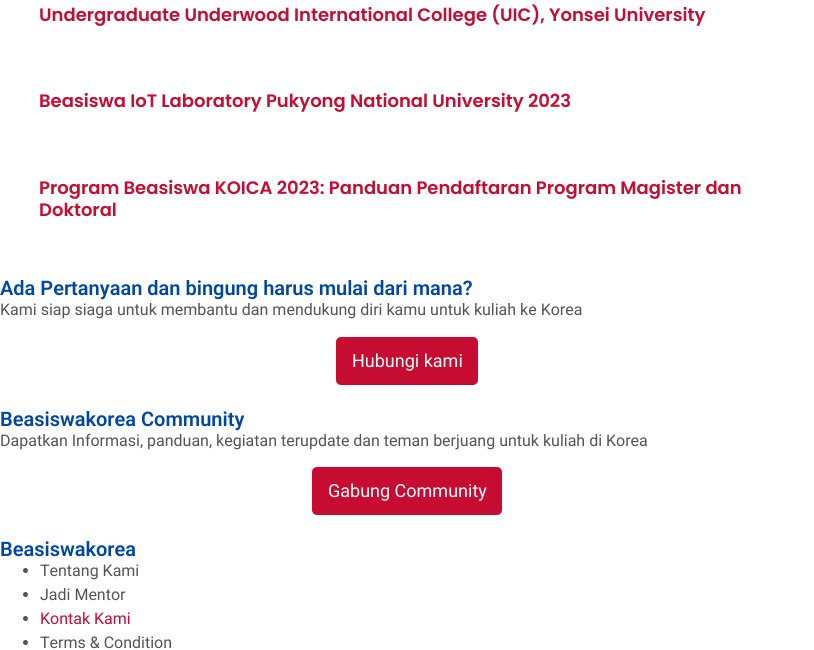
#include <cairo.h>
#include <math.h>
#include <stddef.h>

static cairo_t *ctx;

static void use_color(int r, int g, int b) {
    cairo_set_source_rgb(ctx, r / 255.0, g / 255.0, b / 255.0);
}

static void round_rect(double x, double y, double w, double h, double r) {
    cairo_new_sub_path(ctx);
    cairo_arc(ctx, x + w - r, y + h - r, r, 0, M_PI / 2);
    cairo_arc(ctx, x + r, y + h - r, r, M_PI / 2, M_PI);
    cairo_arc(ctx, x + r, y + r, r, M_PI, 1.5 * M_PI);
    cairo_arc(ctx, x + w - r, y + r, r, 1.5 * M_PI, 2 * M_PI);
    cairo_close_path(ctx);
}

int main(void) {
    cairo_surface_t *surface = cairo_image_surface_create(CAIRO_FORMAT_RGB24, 814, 650);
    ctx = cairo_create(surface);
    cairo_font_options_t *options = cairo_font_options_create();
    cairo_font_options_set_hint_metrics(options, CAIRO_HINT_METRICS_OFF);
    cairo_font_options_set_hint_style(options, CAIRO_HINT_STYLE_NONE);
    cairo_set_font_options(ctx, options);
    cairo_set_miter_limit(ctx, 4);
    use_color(255, 255, 255);
    cairo_paint(ctx);
    cairo_select_font_face(ctx, "Poppins SemiBold", CAIRO_FONT_SLANT_NORMAL, CAIRO_FONT_WEIGHT_NORMAL);
    cairo_set_font_size(ctx, 18);
    use_color(198, 12, 48);
    cairo_move_to(ctx, 39, 21);
    cairo_show_text(ctx, "Undergraduate Underwood International College (UIC), Yonsei University");
    cairo_move_to(ctx, 39, 107);
    cairo_show_text(ctx, "Beasiswa IoT Laboratory Pukyong National University 2023");
    cairo_move_to(ctx, 39, 194);
    cairo_show_text(ctx, "Program Beasiswa KOICA 2023: Panduan Pendaftaran Program Magister dan");
    cairo_move_to(ctx, 39, 216);
    cairo_show_text(ctx, "Doktoral");
    cairo_select_font_face(ctx, "Roboto SemiBold", CAIRO_FONT_SLANT_NORMAL, CAIRO_FONT_WEIGHT_NORMAL);
    cairo_set_font_size(ctx, 20);
    use_color(0, 71, 164);
    cairo_move_to(ctx, 0, 295);
    cairo_show_text(ctx, "Ada Pertanyaan dan bingung harus mulai dari mana?");
    cairo_select_font_face(ctx, "Roboto", CAIRO_FONT_SLANT_NORMAL, CAIRO_FONT_WEIGHT_NORMAL);
    cairo_set_font_size(ctx, 16);
    use_color(84, 84, 84);
    cairo_move_to(ctx, 0, 315);
    cairo_show_text(ctx, "Kami siap siaga untuk membantu dan mendukung diri kamu untuk kuliah ke Korea");
    use_color(198, 12, 48);
    round_rect(336, 337, 142, 48, 5);
    cairo_fill(ctx);
    cairo_set_font_size(ctx, 18);
    use_color(255, 255, 255);
    cairo_move_to(ctx, 352, 367);
    cairo_show_text(ctx, "Hubungi kami");
    cairo_select_font_face(ctx, "Roboto SemiBold", CAIRO_FONT_SLANT_NORMAL, CAIRO_FONT_WEIGHT_NORMAL);
    cairo_set_font_size(ctx, 20);
    use_color(0, 71, 164);
    cairo_move_to(ctx, 0, 426);
    cairo_show_text(ctx, "Beasiswakorea Community");
    cairo_select_font_face(ctx, "Roboto", CAIRO_FONT_SLANT_NORMAL, CAIRO_FONT_WEIGHT_NORMAL);
    cairo_set_font_size(ctx, 16);
    use_color(84, 84, 84);
    cairo_move_to(ctx, 0, 446);
    cairo_show_text(ctx, "Dapatkan Informasi, panduan, kegiatan terupdate dan teman berjuang untuk kuliah di Korea");
    use_color(198, 12, 48);
    round_rect(312, 467, 190, 48, 5);
    cairo_fill(ctx);
    cairo_set_font_size(ctx, 18);
    use_color(255, 255, 255);
    cairo_move_to(ctx, 328, 497);
    cairo_show_text(ctx, "Gabung Community");
    cairo_select_font_face(ctx, "Roboto SemiBold", CAIRO_FONT_SLANT_NORMAL, CAIRO_FONT_WEIGHT_NORMAL);
    cairo_set_font_size(ctx, 20);
    use_color(0, 71, 164);
    cairo_move_to(ctx, 0, 556);
    cairo_show_text(ctx, "Beasiswakorea");
    use_color(84, 84, 84);
    cairo_new_path(ctx);
    cairo_arc(ctx, 25.5, 570.5, 2.5, 0, 2 * M_PI);
    cairo_fill(ctx);
    cairo_select_font_face(ctx, "Roboto", CAIRO_FONT_SLANT_NORMAL, CAIRO_FONT_WEIGHT_NORMAL);
    cairo_set_font_size(ctx, 16);
    cairo_move_to(ctx, 40, 576);
    cairo_show_text(ctx, "Tentang Kami");
    cairo_new_path(ctx);
    cairo_arc(ctx, 25.5, 594.5, 2.5, 0, 2 * M_PI);
    cairo_fill(ctx);
    cairo_move_to(ctx, 40, 600);
    cairo_show_text(ctx, "Jadi Mentor");
    cairo_new_path(ctx);
    cairo_arc(ctx, 25.5, 618.5, 2.5, 0, 2 * M_PI);
    cairo_fill(ctx);
    use_color(198, 12, 48);
    cairo_move_to(ctx, 40, 624);
    cairo_show_text(ctx, "Kontak Kami");
    use_color(84, 84, 84);
    cairo_new_path(ctx);
    cairo_arc(ctx, 25.5, 642.5, 2.5, 0, 2 * M_PI);
    cairo_fill(ctx);
    cairo_move_to(ctx, 40, 648);
    cairo_show_text(ctx, "Terms & Condition");
    cairo_surface_write_to_png(surface, "result.png");
    cairo_font_options_destroy(options);
    cairo_destroy(ctx);
    cairo_surface_destroy(surface);
    return 0;
}
